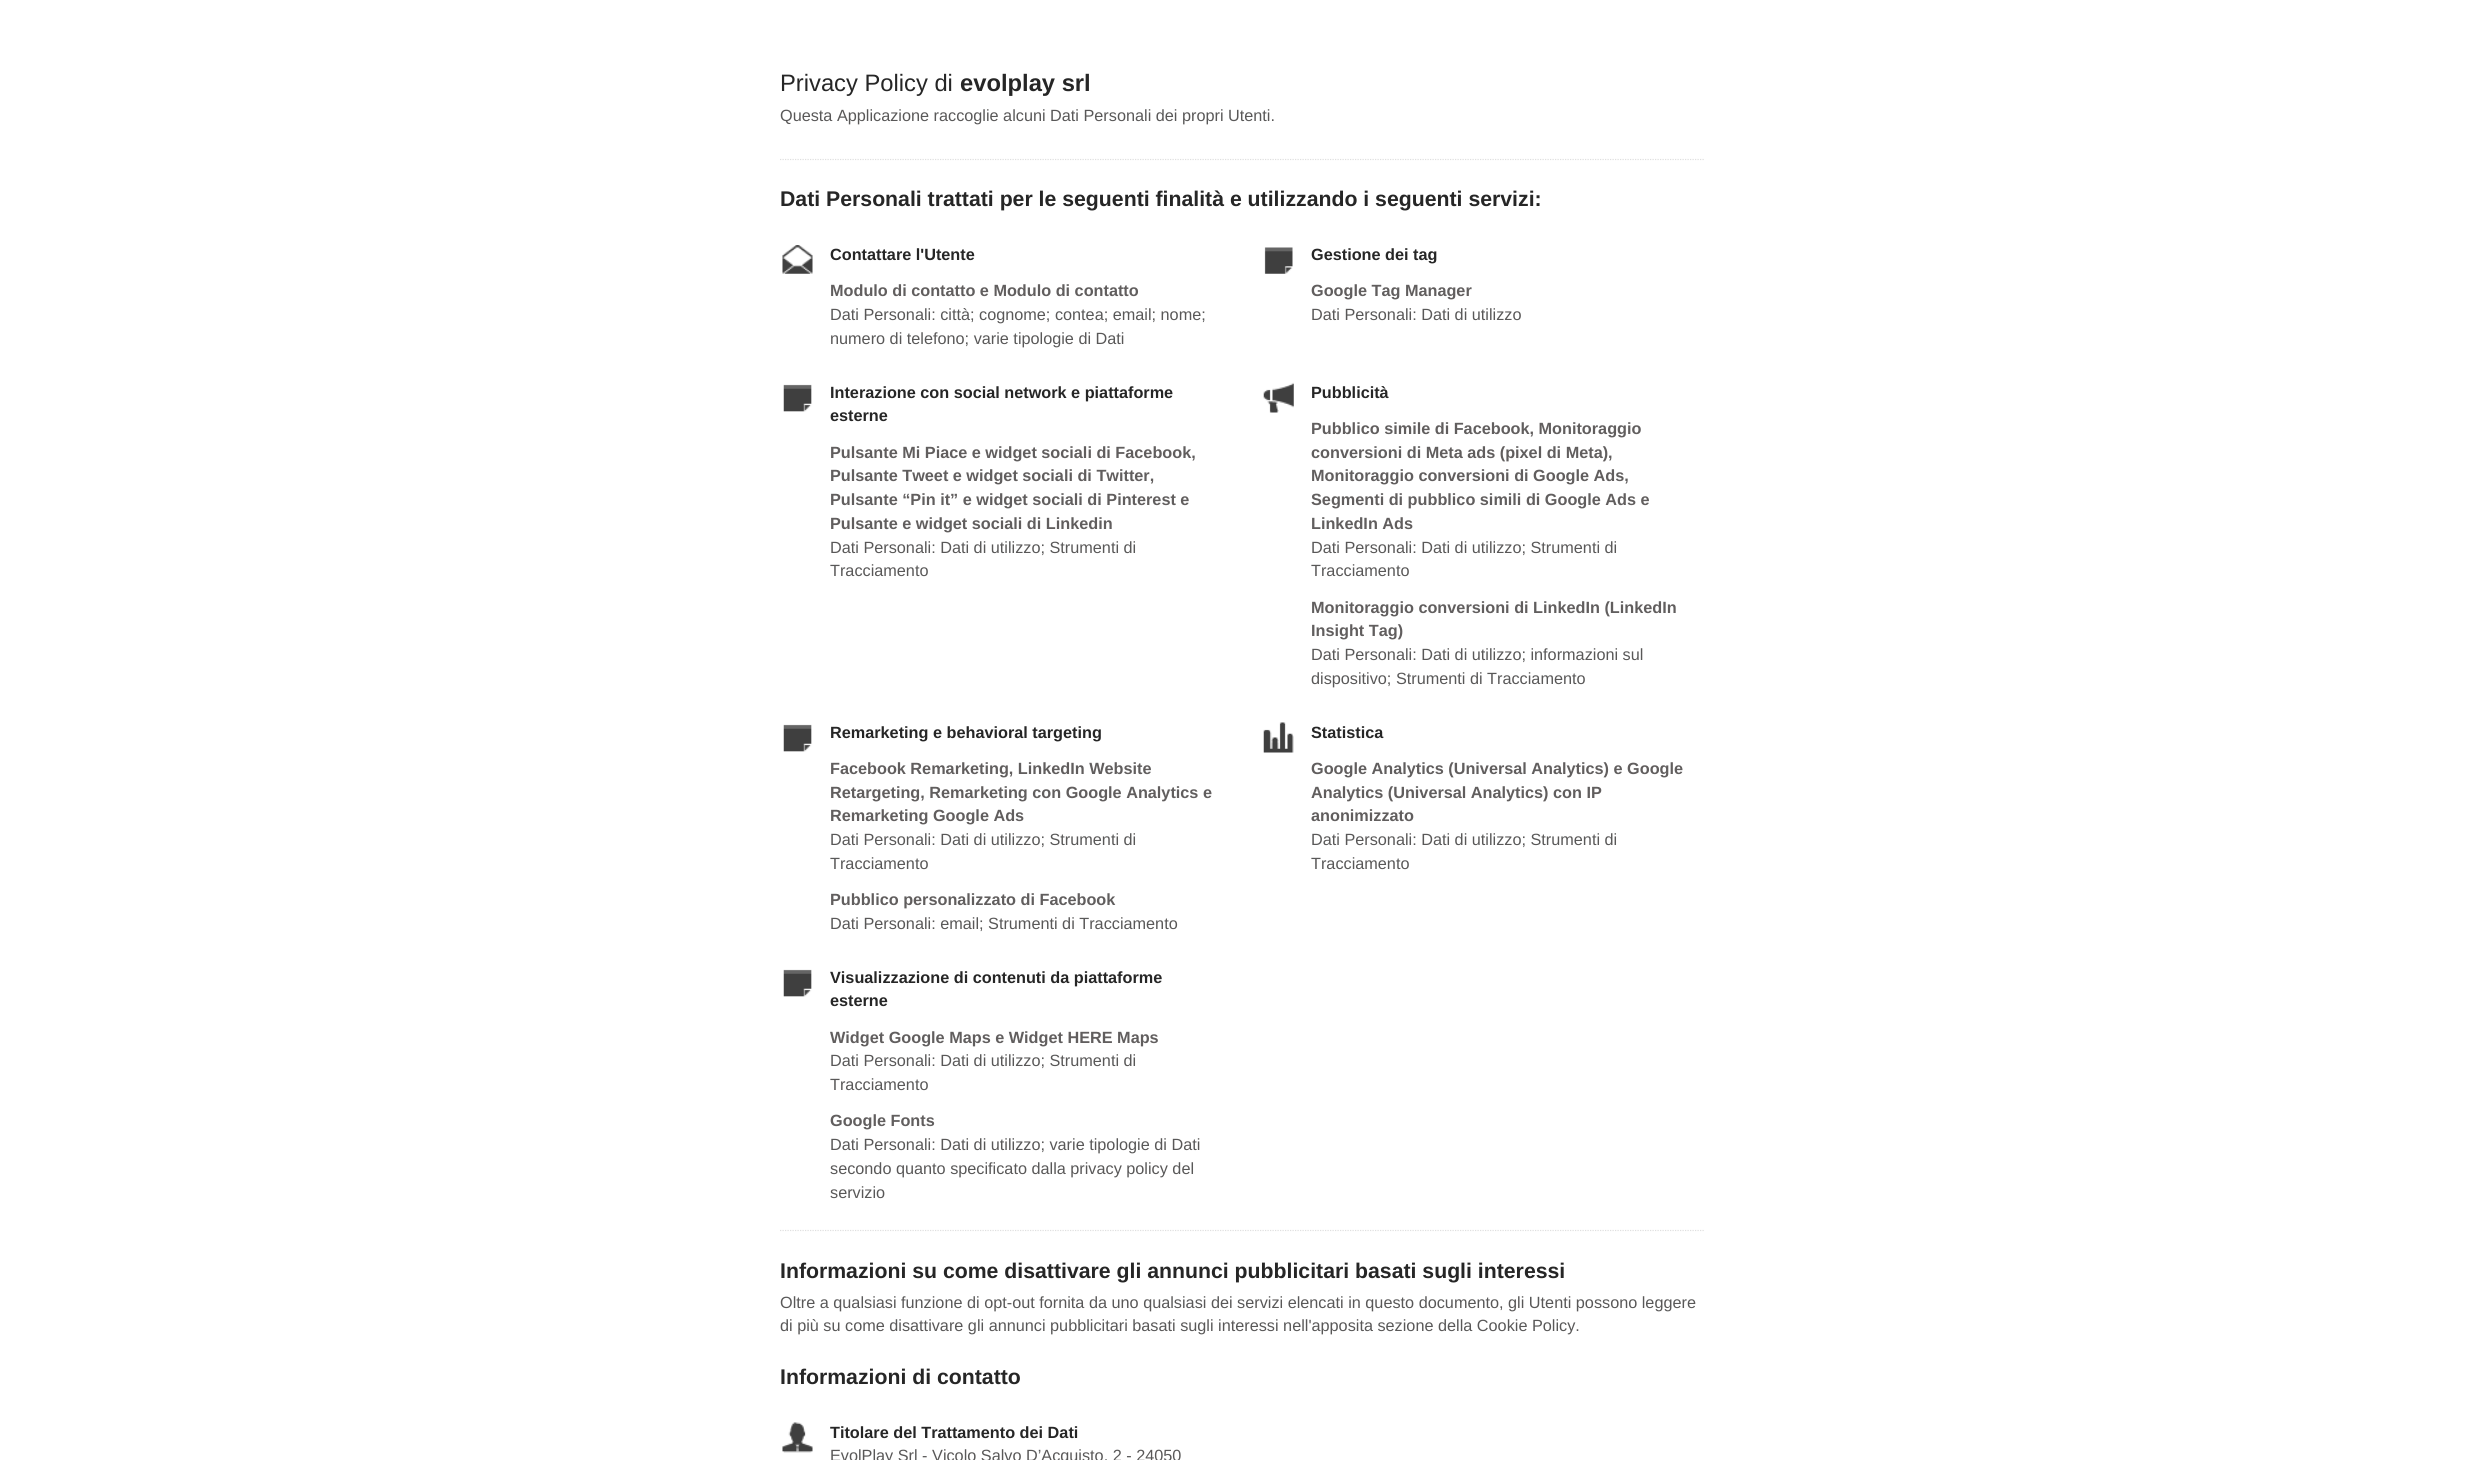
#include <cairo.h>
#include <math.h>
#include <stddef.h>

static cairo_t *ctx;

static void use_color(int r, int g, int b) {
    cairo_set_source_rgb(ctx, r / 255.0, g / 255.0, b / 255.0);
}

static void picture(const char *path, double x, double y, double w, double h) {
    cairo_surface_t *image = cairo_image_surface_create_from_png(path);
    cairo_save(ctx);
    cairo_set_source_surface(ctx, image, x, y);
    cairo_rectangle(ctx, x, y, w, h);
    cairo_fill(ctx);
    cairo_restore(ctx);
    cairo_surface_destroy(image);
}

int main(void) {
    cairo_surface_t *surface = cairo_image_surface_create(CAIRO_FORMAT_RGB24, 2484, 1460);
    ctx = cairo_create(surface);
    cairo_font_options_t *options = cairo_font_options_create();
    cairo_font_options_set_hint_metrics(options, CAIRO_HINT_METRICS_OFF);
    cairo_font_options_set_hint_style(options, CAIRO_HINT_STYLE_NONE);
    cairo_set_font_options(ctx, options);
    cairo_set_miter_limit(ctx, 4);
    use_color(255, 255, 255);
    cairo_paint(ctx);
    cairo_new_path(ctx);
    cairo_move_to(ctx, 780, 159.5);
    cairo_line_to(ctx, 1705, 159.5);
    use_color(223, 223, 223);
    cairo_set_line_width(ctx, 1.2);
    cairo_set_dash(ctx, (double[]){1.25, 1.25}, 2, 0);
    cairo_stroke(ctx);
    cairo_select_font_face(ctx, "Liberation Sans", CAIRO_FONT_SLANT_NORMAL, CAIRO_FONT_WEIGHT_NORMAL);
    cairo_set_font_size(ctx, 23.75);
    use_color(38, 38, 38);
    cairo_move_to(ctx, 780, 91);
    cairo_show_text(ctx, "Privacy Policy di");
    cairo_select_font_face(ctx, "Liberation Sans", CAIRO_FONT_SLANT_NORMAL, CAIRO_FONT_WEIGHT_BOLD);
    cairo_move_to(ctx, 960, 91);
    cairo_show_text(ctx, "evolplay srl");
    cairo_select_font_face(ctx, "Liberation Sans", CAIRO_FONT_SLANT_NORMAL, CAIRO_FONT_WEIGHT_NORMAL);
    cairo_set_font_size(ctx, 16.25);
    use_color(89, 88, 88);
    cairo_move_to(ctx, 780, 121);
    cairo_show_text(ctx, "Questa Applicazione raccoglie alcuni Dati Personali dei propri Utenti.");
    cairo_select_font_face(ctx, "Liberation Sans", CAIRO_FONT_SLANT_NORMAL, CAIRO_FONT_WEIGHT_BOLD);
    cairo_set_font_size(ctx, 21.25);
    use_color(38, 38, 38);
    cairo_move_to(ctx, 780, 206);
    cairo_show_text(ctx, "Dati Personali trattati per le seguenti finalità e utilizzando i seguenti servizi:");
    cairo_new_path(ctx);
    cairo_move_to(ctx, 780, 1230.5);
    cairo_line_to(ctx, 1705, 1230.5);
    use_color(223, 223, 223);
    cairo_stroke(ctx);
    picture("img1.png", 782, 245, 31, 29);
    cairo_set_font_size(ctx, 16.25);
    use_color(38, 38, 38);
    cairo_move_to(ctx, 830, 260);
    cairo_show_text(ctx, "Contattare l'Utente");
    use_color(97, 94, 94);
    cairo_move_to(ctx, 830, 296);
    cairo_show_text(ctx, "Modulo di contatto e Modulo di contatto");
    cairo_select_font_face(ctx, "Liberation Sans", CAIRO_FONT_SLANT_NORMAL, CAIRO_FONT_WEIGHT_NORMAL);
    use_color(89, 88, 88);
    cairo_move_to(ctx, 830, 320);
    cairo_show_text(ctx, "Dati Personali: città; cognome; contea; email; nome;");
    cairo_move_to(ctx, 830, 344);
    cairo_show_text(ctx, "numero di telefono; varie tipologie di Dati");
    picture("img2.png", 1264, 247, 29, 27);
    cairo_select_font_face(ctx, "Liberation Sans", CAIRO_FONT_SLANT_NORMAL, CAIRO_FONT_WEIGHT_BOLD);
    use_color(38, 38, 38);
    cairo_move_to(ctx, 1311, 260);
    cairo_show_text(ctx, "Gestione dei tag");
    use_color(97, 94, 94);
    cairo_move_to(ctx, 1311, 296);
    cairo_show_text(ctx, "Google Tag Manager");
    cairo_select_font_face(ctx, "Liberation Sans", CAIRO_FONT_SLANT_NORMAL, CAIRO_FONT_WEIGHT_NORMAL);
    use_color(89, 88, 88);
    cairo_move_to(ctx, 1311, 320);
    cairo_show_text(ctx, "Dati Personali: Dati di utilizzo");
    picture("img3.png", 783, 384, 29, 28);
    cairo_select_font_face(ctx, "Liberation Sans", CAIRO_FONT_SLANT_NORMAL, CAIRO_FONT_WEIGHT_BOLD);
    use_color(38, 38, 38);
    cairo_move_to(ctx, 830, 398);
    cairo_show_text(ctx, "Interazione con social network e piattaforme");
    cairo_move_to(ctx, 830, 421);
    cairo_show_text(ctx, "esterne");
    use_color(97, 94, 94);
    cairo_move_to(ctx, 830, 458);
    cairo_show_text(ctx, "Pulsante Mi Piace e widget sociali di Facebook,");
    cairo_move_to(ctx, 830, 481);
    cairo_show_text(ctx, "Pulsante Tweet e widget sociali di Twitter,");
    cairo_move_to(ctx, 830, 505);
    cairo_show_text(ctx, "Pulsante “Pin it” e widget sociali di Pinterest e");
    cairo_move_to(ctx, 830, 529);
    cairo_show_text(ctx, "Pulsante e widget sociali di Linkedin");
    cairo_select_font_face(ctx, "Liberation Sans", CAIRO_FONT_SLANT_NORMAL, CAIRO_FONT_WEIGHT_NORMAL);
    use_color(89, 88, 88);
    cairo_move_to(ctx, 830, 553);
    cairo_show_text(ctx, "Dati Personali: Dati di utilizzo; Strumenti di");
    cairo_move_to(ctx, 830, 576);
    cairo_show_text(ctx, "Tracciamento");
    picture("img4.png", 1263, 382, 31, 31);
    cairo_select_font_face(ctx, "Liberation Sans", CAIRO_FONT_SLANT_NORMAL, CAIRO_FONT_WEIGHT_BOLD);
    use_color(38, 38, 38);
    cairo_move_to(ctx, 1311, 398);
    cairo_show_text(ctx, "Pubblicità");
    use_color(97, 94, 94);
    cairo_move_to(ctx, 1311, 434);
    cairo_show_text(ctx, "Pubblico simile di Facebook, Monitoraggio");
    cairo_move_to(ctx, 1311, 458);
    cairo_show_text(ctx, "conversioni di Meta ads (pixel di Meta),");
    cairo_move_to(ctx, 1311, 481);
    cairo_show_text(ctx, "Monitoraggio conversioni di Google Ads,");
    cairo_move_to(ctx, 1311, 505);
    cairo_show_text(ctx, "Segmenti di pubblico simili di Google Ads e");
    cairo_move_to(ctx, 1311, 529);
    cairo_show_text(ctx, "LinkedIn Ads");
    cairo_select_font_face(ctx, "Liberation Sans", CAIRO_FONT_SLANT_NORMAL, CAIRO_FONT_WEIGHT_NORMAL);
    use_color(89, 88, 88);
    cairo_move_to(ctx, 1311, 553);
    cairo_show_text(ctx, "Dati Personali: Dati di utilizzo; Strumenti di");
    cairo_move_to(ctx, 1311, 576);
    cairo_show_text(ctx, "Tracciamento");
    cairo_select_font_face(ctx, "Liberation Sans", CAIRO_FONT_SLANT_NORMAL, CAIRO_FONT_WEIGHT_BOLD);
    use_color(97, 94, 94);
    cairo_move_to(ctx, 1311, 613);
    cairo_show_text(ctx, "Monitoraggio conversioni di LinkedIn (LinkedIn");
    cairo_move_to(ctx, 1311, 636);
    cairo_show_text(ctx, "Insight Tag)");
    cairo_select_font_face(ctx, "Liberation Sans", CAIRO_FONT_SLANT_NORMAL, CAIRO_FONT_WEIGHT_NORMAL);
    use_color(89, 88, 88);
    cairo_move_to(ctx, 1311, 660);
    cairo_show_text(ctx, "Dati Personali: Dati di utilizzo; informazioni sul");
    cairo_move_to(ctx, 1311, 684);
    cairo_show_text(ctx, "dispositivo; Strumenti di Tracciamento");
    picture("img3.png", 783, 724, 29, 28);
    cairo_select_font_face(ctx, "Liberation Sans", CAIRO_FONT_SLANT_NORMAL, CAIRO_FONT_WEIGHT_BOLD);
    use_color(38, 38, 38);
    cairo_move_to(ctx, 830, 738);
    cairo_show_text(ctx, "Remarketing e behavioral targeting");
    use_color(97, 94, 94);
    cairo_move_to(ctx, 830, 774);
    cairo_show_text(ctx, "Facebook Remarketing, LinkedIn Website");
    cairo_move_to(ctx, 830, 798);
    cairo_show_text(ctx, "Retargeting, Remarketing con Google Analytics e");
    cairo_move_to(ctx, 830, 821);
    cairo_show_text(ctx, "Remarketing Google Ads");
    cairo_select_font_face(ctx, "Liberation Sans", CAIRO_FONT_SLANT_NORMAL, CAIRO_FONT_WEIGHT_NORMAL);
    use_color(89, 88, 88);
    cairo_move_to(ctx, 830, 845);
    cairo_show_text(ctx, "Dati Personali: Dati di utilizzo; Strumenti di");
    cairo_move_to(ctx, 830, 869);
    cairo_show_text(ctx, "Tracciamento");
    cairo_select_font_face(ctx, "Liberation Sans", CAIRO_FONT_SLANT_NORMAL, CAIRO_FONT_WEIGHT_BOLD);
    use_color(97, 94, 94);
    cairo_move_to(ctx, 830, 905);
    cairo_show_text(ctx, "Pubblico personalizzato di Facebook");
    cairo_select_font_face(ctx, "Liberation Sans", CAIRO_FONT_SLANT_NORMAL, CAIRO_FONT_WEIGHT_NORMAL);
    use_color(89, 88, 88);
    cairo_move_to(ctx, 830, 929);
    cairo_show_text(ctx, "Dati Personali: email; Strumenti di Tracciamento");
    picture("img5.png", 1263, 722, 31, 31);
    cairo_select_font_face(ctx, "Liberation Sans", CAIRO_FONT_SLANT_NORMAL, CAIRO_FONT_WEIGHT_BOLD);
    use_color(38, 38, 38);
    cairo_move_to(ctx, 1311, 738);
    cairo_show_text(ctx, "Statistica");
    use_color(97, 94, 94);
    cairo_move_to(ctx, 1311, 774);
    cairo_show_text(ctx, "Google Analytics (Universal Analytics) e Google");
    cairo_move_to(ctx, 1311, 798);
    cairo_show_text(ctx, "Analytics (Universal Analytics) con IP");
    cairo_move_to(ctx, 1311, 821);
    cairo_show_text(ctx, "anonimizzato");
    cairo_select_font_face(ctx, "Liberation Sans", CAIRO_FONT_SLANT_NORMAL, CAIRO_FONT_WEIGHT_NORMAL);
    use_color(89, 88, 88);
    cairo_move_to(ctx, 1311, 845);
    cairo_show_text(ctx, "Dati Personali: Dati di utilizzo; Strumenti di");
    cairo_move_to(ctx, 1311, 869);
    cairo_show_text(ctx, "Tracciamento");
    picture("img3.png", 783, 969, 29, 28);
    cairo_select_font_face(ctx, "Liberation Sans", CAIRO_FONT_SLANT_NORMAL, CAIRO_FONT_WEIGHT_BOLD);
    use_color(38, 38, 38);
    cairo_move_to(ctx, 830, 983);
    cairo_show_text(ctx, "Visualizzazione di contenuti da piattaforme");
    cairo_move_to(ctx, 830, 1006);
    cairo_show_text(ctx, "esterne");
    use_color(97, 94, 94);
    cairo_move_to(ctx, 830, 1043);
    cairo_show_text(ctx, "Widget Google Maps e Widget HERE Maps");
    cairo_select_font_face(ctx, "Liberation Sans", CAIRO_FONT_SLANT_NORMAL, CAIRO_FONT_WEIGHT_NORMAL);
    use_color(89, 88, 88);
    cairo_move_to(ctx, 830, 1066);
    cairo_show_text(ctx, "Dati Personali: Dati di utilizzo; Strumenti di");
    cairo_move_to(ctx, 830, 1090);
    cairo_show_text(ctx, "Tracciamento");
    cairo_select_font_face(ctx, "Liberation Sans", CAIRO_FONT_SLANT_NORMAL, CAIRO_FONT_WEIGHT_BOLD);
    use_color(97, 94, 94);
    cairo_move_to(ctx, 830, 1126);
    cairo_show_text(ctx, "Google Fonts");
    cairo_select_font_face(ctx, "Liberation Sans", CAIRO_FONT_SLANT_NORMAL, CAIRO_FONT_WEIGHT_NORMAL);
    use_color(89, 88, 88);
    cairo_move_to(ctx, 830, 1150);
    cairo_show_text(ctx, "Dati Personali: Dati di utilizzo; varie tipologie di Dati");
    cairo_move_to(ctx, 830, 1174);
    cairo_show_text(ctx, "secondo quanto specificato dalla privacy policy del");
    cairo_move_to(ctx, 830, 1198);
    cairo_show_text(ctx, "servizio");
    cairo_select_font_face(ctx, "Liberation Sans", CAIRO_FONT_SLANT_NORMAL, CAIRO_FONT_WEIGHT_BOLD);
    cairo_set_font_size(ctx, 21.25);
    use_color(38, 38, 38);
    cairo_move_to(ctx, 780, 1278);
    cairo_show_text(ctx, "Informazioni su come disattivare gli annunci pubblicitari basati sugli interessi");
    cairo_select_font_face(ctx, "Liberation Sans", CAIRO_FONT_SLANT_NORMAL, CAIRO_FONT_WEIGHT_NORMAL);
    cairo_set_font_size(ctx, 16.25);
    use_color(89, 88, 88);
    cairo_move_to(ctx, 780, 1308);
    cairo_show_text(ctx, "Oltre a qualsiasi funzione di opt-out fornita da uno qualsiasi dei servizi elencati in questo documento, gli Utenti possono leggere");
    cairo_move_to(ctx, 780, 1331);
    cairo_show_text(ctx, "di più su come disattivare gli annunci pubblicitari basati sugli interessi nell'apposita sezione della Cookie Policy.");
    cairo_select_font_face(ctx, "Liberation Sans", CAIRO_FONT_SLANT_NORMAL, CAIRO_FONT_WEIGHT_BOLD);
    cairo_set_font_size(ctx, 21.25);
    use_color(38, 38, 38);
    cairo_move_to(ctx, 780, 1384);
    cairo_show_text(ctx, "Informazioni di contatto");
    picture("img6.png", 782, 1422, 31, 31);
    cairo_set_font_size(ctx, 16.25);
    cairo_move_to(ctx, 830, 1438);
    cairo_show_text(ctx, "Titolare del Trattamento dei Dati");
    cairo_select_font_face(ctx, "Liberation Sans", CAIRO_FONT_SLANT_NORMAL, CAIRO_FONT_WEIGHT_NORMAL);
    use_color(89, 88, 88);
    cairo_move_to(ctx, 830, 1461);
    cairo_show_text(ctx, "EvolPlay Srl - Vicolo Salvo D’Acquisto, 2 - 24050");
    cairo_surface_write_to_png(surface, "result.png");
    cairo_font_options_destroy(options);
    cairo_destroy(ctx);
    cairo_surface_destroy(surface);
    return 0;
}
